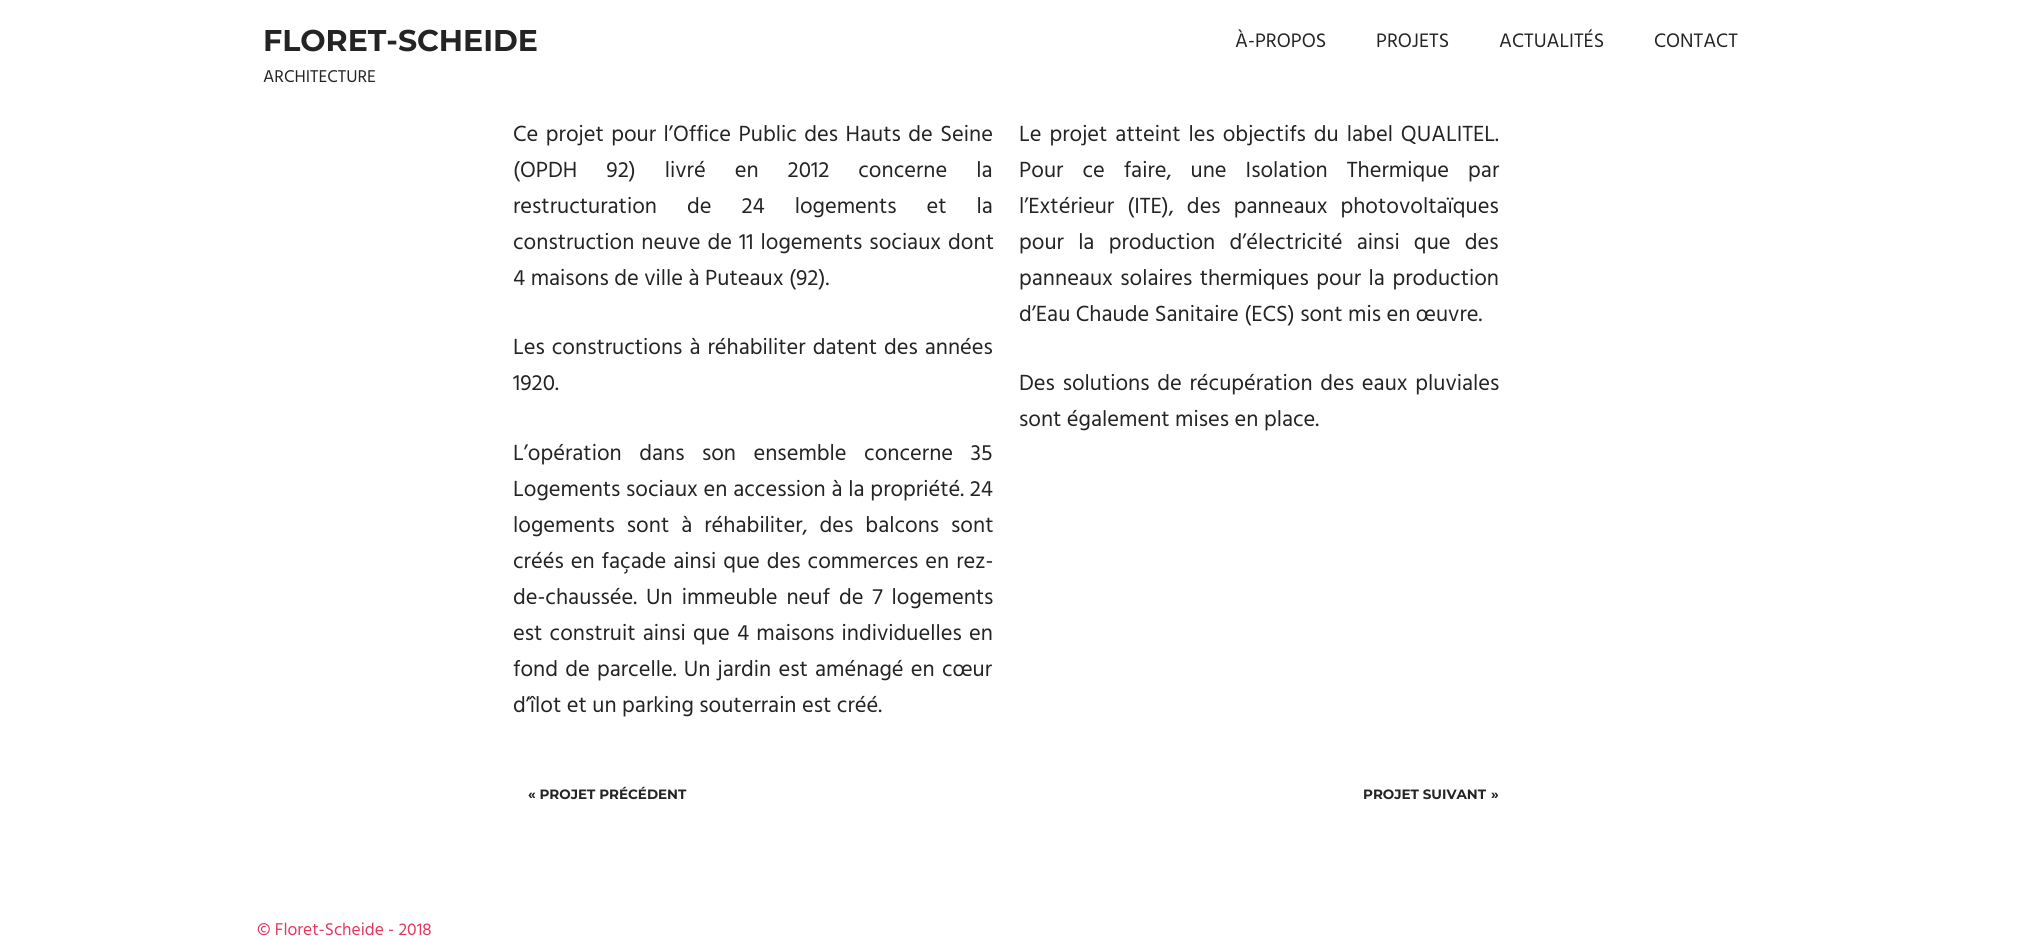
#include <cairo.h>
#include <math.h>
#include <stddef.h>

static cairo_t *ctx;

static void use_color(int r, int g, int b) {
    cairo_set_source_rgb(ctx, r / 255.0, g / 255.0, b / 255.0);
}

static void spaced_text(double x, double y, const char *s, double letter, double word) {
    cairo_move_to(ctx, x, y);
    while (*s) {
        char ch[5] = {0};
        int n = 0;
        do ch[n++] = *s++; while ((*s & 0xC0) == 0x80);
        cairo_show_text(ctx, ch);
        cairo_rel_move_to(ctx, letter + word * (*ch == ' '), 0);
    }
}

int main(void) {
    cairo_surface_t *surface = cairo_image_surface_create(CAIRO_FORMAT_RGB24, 2026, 936);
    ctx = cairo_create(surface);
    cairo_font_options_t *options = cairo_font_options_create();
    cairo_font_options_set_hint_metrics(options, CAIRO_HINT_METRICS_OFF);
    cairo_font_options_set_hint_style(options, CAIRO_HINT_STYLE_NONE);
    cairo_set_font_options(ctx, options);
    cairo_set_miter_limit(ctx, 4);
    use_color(255, 255, 255);
    cairo_paint(ctx);
    cairo_select_font_face(ctx, "Montserrat", CAIRO_FONT_SLANT_NORMAL, CAIRO_FONT_WEIGHT_BOLD);
    cairo_set_font_size(ctx, 30);
    use_color(36, 36, 36);
    cairo_move_to(ctx, 263, 51);
    cairo_show_text(ctx, "FLORET-SCHEIDE");
    cairo_select_font_face(ctx, "Hind", CAIRO_FONT_SLANT_NORMAL, CAIRO_FONT_WEIGHT_NORMAL);
    cairo_set_font_size(ctx, 17.5);
    cairo_move_to(ctx, 263, 82);
    cairo_show_text(ctx, "ARCHITECTURE");
    cairo_set_font_size(ctx, 20);
    cairo_move_to(ctx, 1235, 47);
    cairo_show_text(ctx, "À-PROPOS");
    cairo_move_to(ctx, 1376, 47);
    cairo_show_text(ctx, "PROJETS");
    cairo_move_to(ctx, 1499, 47);
    cairo_show_text(ctx, "ACTUALITÉS");
    cairo_move_to(ctx, 1654, 47);
    cairo_show_text(ctx, "CONTACT");
    cairo_set_font_size(ctx, 22.5);
    spaced_text(513, 141, "Ce projet pour l’Office Public des Hauts de Seine", 0, 2);
    spaced_text(513, 177, "(OPDH 92) livré en 2012 concerne la", 0, 23.5);
    spaced_text(513, 213, "restructuration de 24 logements et la", 0, 24.5);
    spaced_text(513, 249, "construction neuve de 11 logements sociaux dont", 0, 1.5);
    cairo_move_to(ctx, 513, 285);
    cairo_show_text(ctx, "4 maisons de ville à Puteaux (92).");
    spaced_text(513, 354, "Les constructions à réhabiliter datent des années", 0, 1.5);
    cairo_move_to(ctx, 513, 390);
    cairo_show_text(ctx, "1920.");
    spaced_text(513, 460, "L’opération dans son ensemble concerne 35", 0, 12);
    spaced_text(513, 496, "Logements sociaux en accession à la propriété. 24", 0, 0.25);
    spaced_text(513, 532, "logements sont à réhabiliter, des balcons sont", 0, 6.5);
    spaced_text(513, 568, "créés en façade ainsi que des commerces en rez-", 0, 1.5);
    spaced_text(513, 604, "de-chaussée. Un immeuble neuf de 7 logements", 0, 3.5);
    spaced_text(513, 640, "est construit ainsi que 4 maisons individuelles en", 0, 1.75);
    spaced_text(513, 676, "fond de parcelle. Un jardin est aménagé en cœur", 0, 1.75);
    cairo_move_to(ctx, 513, 712);
    cairo_show_text(ctx, "d’îlot et un parking souterrain est créé.");
    spaced_text(1019, 141, "Le projet atteint les objectifs du label QUALITEL.", 0, 2.5);
    spaced_text(1019, 177, "Pour ce faire, une Isolation Thermique par", 0, 13.5);
    spaced_text(1019, 213, "l’Extérieur (ITE), des panneaux photovoltaïques", 0, 7.5);
    spaced_text(1019, 249, "pour la production d’électricité ainsi que des", 0, 8.75);
    spaced_text(1019, 285, "panneaux solaires thermiques pour la production", 0, 2);
    cairo_move_to(ctx, 1019, 321);
    cairo_show_text(ctx, "d’Eau Chaude Sanitaire (ECS) sont mis en œuvre.");
    spaced_text(1019, 390, "Des solutions de récupération des eaux pluviales", 0, 2.25);
    cairo_move_to(ctx, 1019, 426);
    cairo_show_text(ctx, "sont également mises en place.");
    cairo_select_font_face(ctx, "Montserrat", CAIRO_FONT_SLANT_NORMAL, CAIRO_FONT_WEIGHT_BOLD);
    cairo_set_font_size(ctx, 13.5);
    cairo_move_to(ctx, 528, 799);
    cairo_show_text(ctx, "« PROJET PRÉCÉDENT");
    cairo_move_to(ctx, 1363, 799);
    cairo_show_text(ctx, "PROJET SUIVANT");
    cairo_move_to(ctx, 1491, 799);
    cairo_show_text(ctx, "»");
    cairo_select_font_face(ctx, "Hind", CAIRO_FONT_SLANT_NORMAL, CAIRO_FONT_WEIGHT_NORMAL);
    cairo_set_font_size(ctx, 17.5);
    use_color(231, 54, 95);
    cairo_move_to(ctx, 257, 935);
    cairo_show_text(ctx, "© Floret-Scheide - 2018");
    cairo_surface_write_to_png(surface, "result.png");
    cairo_font_options_destroy(options);
    cairo_destroy(ctx);
    cairo_surface_destroy(surface);
    return 0;
}
